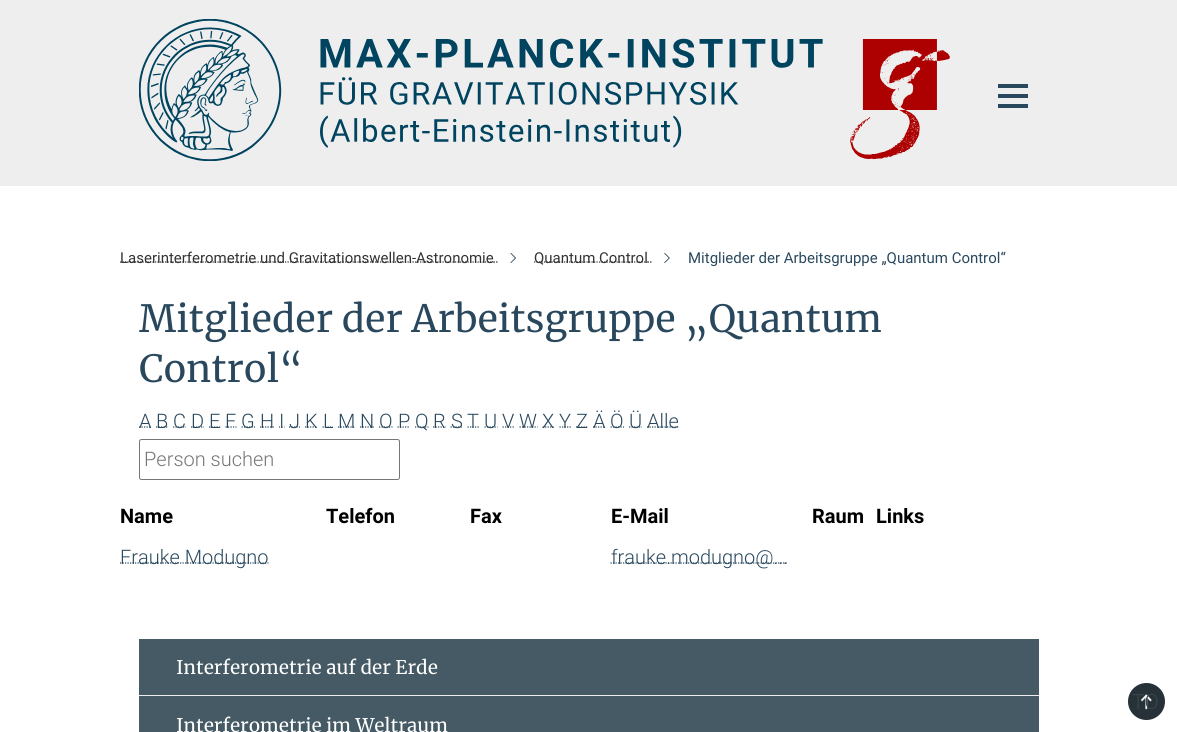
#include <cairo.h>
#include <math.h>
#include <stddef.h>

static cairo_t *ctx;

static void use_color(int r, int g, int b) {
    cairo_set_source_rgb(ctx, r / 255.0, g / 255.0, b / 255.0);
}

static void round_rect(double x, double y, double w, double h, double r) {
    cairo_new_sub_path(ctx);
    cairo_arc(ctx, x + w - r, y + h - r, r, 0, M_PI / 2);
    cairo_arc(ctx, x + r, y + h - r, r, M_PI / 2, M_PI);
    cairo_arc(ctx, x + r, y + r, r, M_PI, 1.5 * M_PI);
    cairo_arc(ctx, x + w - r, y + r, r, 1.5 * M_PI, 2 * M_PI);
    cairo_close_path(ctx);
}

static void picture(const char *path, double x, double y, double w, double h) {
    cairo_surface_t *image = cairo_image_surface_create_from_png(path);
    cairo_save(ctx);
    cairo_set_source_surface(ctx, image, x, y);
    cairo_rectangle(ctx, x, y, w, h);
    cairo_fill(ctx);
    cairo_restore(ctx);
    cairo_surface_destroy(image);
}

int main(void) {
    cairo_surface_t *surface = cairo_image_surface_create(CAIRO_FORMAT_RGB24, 1177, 732);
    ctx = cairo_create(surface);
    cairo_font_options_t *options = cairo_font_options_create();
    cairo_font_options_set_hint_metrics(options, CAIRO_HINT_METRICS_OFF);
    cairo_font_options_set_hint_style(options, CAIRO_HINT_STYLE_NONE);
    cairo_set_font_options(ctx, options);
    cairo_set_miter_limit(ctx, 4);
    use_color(255, 255, 255);
    cairo_paint(ctx);
    use_color(238, 238, 238);
    cairo_rectangle(ctx, 0, 0, 1177, 186);
    cairo_fill(ctx);
    picture("img1.png", 139, 19, 811, 142);
    use_color(41, 72, 93);
    cairo_rectangle(ctx, 998, 84, 30, 4);
    cairo_fill(ctx);
    cairo_rectangle(ctx, 998, 94, 30, 4);
    cairo_fill(ctx);
    cairo_rectangle(ctx, 998, 104, 30, 4);
    cairo_fill(ctx);
    cairo_new_path(ctx);
    cairo_move_to(ctx, 120, 262);
    cairo_line_to(ctx, 493.5, 262);
    use_color(51, 51, 51);
    cairo_set_line_width(ctx, 1.2);
    cairo_set_dash(ctx, (double[]){1.25, 1.25}, 2, 0);
    cairo_stroke(ctx);
    cairo_select_font_face(ctx, "Roboto", CAIRO_FONT_SLANT_NORMAL, CAIRO_FONT_WEIGHT_NORMAL);
    cairo_set_font_size(ctx, 15);
    cairo_move_to(ctx, 120, 263);
    cairo_show_text(ctx, "Laserinterferometrie und Gravitationswellen-Astronomie");
    cairo_new_path(ctx);
    cairo_move_to(ctx, 493.5, 262);
    cairo_line_to(ctx, 495, 262);
    cairo_move_to(ctx, 496, 262);
    cairo_line_to(ctx, 497.5, 262);
    cairo_set_dash(ctx, NULL, 0, 0);
    cairo_stroke(ctx);
    picture("img2.png", 510, 253, 6, 10);
    cairo_new_path(ctx);
    cairo_move_to(ctx, 534, 262);
    cairo_line_to(ctx, 647.5, 262);
    cairo_set_dash(ctx, (double[]){1.25, 1.25}, 2, 0);
    cairo_stroke(ctx);
    cairo_move_to(ctx, 534, 263);
    cairo_show_text(ctx, "Quantum Control");
    cairo_new_path(ctx);
    cairo_move_to(ctx, 647.5, 262);
    cairo_line_to(ctx, 649, 262);
    cairo_move_to(ctx, 650, 262);
    cairo_line_to(ctx, 651.5, 262);
    cairo_set_dash(ctx, NULL, 0, 0);
    cairo_stroke(ctx);
    picture("img3.png", 664, 252, 6, 12);
    use_color(41, 72, 93);
    cairo_move_to(ctx, 688, 263);
    cairo_show_text(ctx, "Mitglieder der Arbeitsgruppe „Quantum Control“");
    cairo_select_font_face(ctx, "Merriweather", CAIRO_FONT_SLANT_NORMAL, CAIRO_FONT_WEIGHT_NORMAL);
    cairo_set_font_size(ctx, 37.5);
    cairo_move_to(ctx, 139, 332);
    cairo_show_text(ctx, "Mitglieder der Arbeitsgruppe „Quantum");
    cairo_move_to(ctx, 139, 382);
    cairo_show_text(ctx, "Control“");
    cairo_new_path(ctx);
    cairo_move_to(ctx, 139, 427);
    cairo_line_to(ctx, 151, 427);
    cairo_set_dash(ctx, (double[]){1.25, 1.25}, 2, 0);
    cairo_stroke(ctx);
    cairo_select_font_face(ctx, "Roboto Light", CAIRO_FONT_SLANT_NORMAL, CAIRO_FONT_WEIGHT_NORMAL);
    cairo_set_font_size(ctx, 20);
    cairo_move_to(ctx, 139, 428);
    cairo_show_text(ctx, "A");
    cairo_new_path(ctx);
    cairo_move_to(ctx, 156, 427);
    cairo_line_to(ctx, 168.5, 427);
    cairo_stroke(ctx);
    cairo_move_to(ctx, 156, 428);
    cairo_show_text(ctx, "B");
    cairo_new_path(ctx);
    cairo_move_to(ctx, 173, 427);
    cairo_line_to(ctx, 186, 427);
    cairo_stroke(ctx);
    cairo_move_to(ctx, 173, 428);
    cairo_show_text(ctx, "C");
    cairo_new_path(ctx);
    cairo_move_to(ctx, 191, 427);
    cairo_line_to(ctx, 204, 427);
    cairo_stroke(ctx);
    cairo_move_to(ctx, 191, 428);
    cairo_show_text(ctx, "D");
    cairo_new_path(ctx);
    cairo_move_to(ctx, 209, 427);
    cairo_line_to(ctx, 220.5, 427);
    cairo_stroke(ctx);
    cairo_move_to(ctx, 209, 428);
    cairo_show_text(ctx, "E");
    cairo_new_path(ctx);
    cairo_move_to(ctx, 225.5, 427);
    cairo_line_to(ctx, 236.5, 427);
    cairo_stroke(ctx);
    cairo_move_to(ctx, 225, 428);
    cairo_show_text(ctx, "F");
    cairo_new_path(ctx);
    cairo_move_to(ctx, 241.5, 427);
    cairo_line_to(ctx, 255, 427);
    cairo_stroke(ctx);
    cairo_move_to(ctx, 241, 428);
    cairo_show_text(ctx, "G");
    cairo_new_path(ctx);
    cairo_move_to(ctx, 260, 427);
    cairo_line_to(ctx, 274, 427);
    cairo_stroke(ctx);
    cairo_move_to(ctx, 260, 428);
    cairo_show_text(ctx, "H");
    cairo_new_path(ctx);
    cairo_move_to(ctx, 279, 427);
    cairo_line_to(ctx, 280, 427);
    cairo_move_to(ctx, 281.5, 427);
    cairo_line_to(ctx, 282.5, 427);
    cairo_move_to(ctx, 284, 427);
    cairo_line_to(ctx, 284.5, 427);
    cairo_set_dash(ctx, NULL, 0, 0);
    cairo_stroke(ctx);
    cairo_move_to(ctx, 279, 428);
    cairo_show_text(ctx, "I");
    cairo_new_path(ctx);
    cairo_move_to(ctx, 289, 427);
    cairo_line_to(ctx, 300, 427);
    cairo_set_dash(ctx, (double[]){1.25, 1.25}, 2, 0);
    cairo_stroke(ctx);
    cairo_move_to(ctx, 289, 428);
    cairo_show_text(ctx, "J");
    cairo_new_path(ctx);
    cairo_move_to(ctx, 305, 427);
    cairo_line_to(ctx, 317.5, 427);
    cairo_stroke(ctx);
    cairo_move_to(ctx, 305, 428);
    cairo_show_text(ctx, "K");
    cairo_new_path(ctx);
    cairo_move_to(ctx, 322.5, 427);
    cairo_line_to(ctx, 333, 427);
    cairo_stroke(ctx);
    cairo_move_to(ctx, 323, 428);
    cairo_show_text(ctx, "L");
    cairo_new_path(ctx);
    cairo_move_to(ctx, 338, 427);
    cairo_line_to(ctx, 355.5, 427);
    cairo_stroke(ctx);
    cairo_move_to(ctx, 338, 428);
    cairo_show_text(ctx, "M");
    cairo_new_path(ctx);
    cairo_move_to(ctx, 360, 427);
    cairo_line_to(ctx, 374.5, 427);
    cairo_stroke(ctx);
    cairo_move_to(ctx, 360, 428);
    cairo_show_text(ctx, "N");
    cairo_new_path(ctx);
    cairo_move_to(ctx, 379, 427);
    cairo_line_to(ctx, 392.5, 427);
    cairo_stroke(ctx);
    cairo_move_to(ctx, 379, 428);
    cairo_show_text(ctx, "O");
    cairo_new_path(ctx);
    cairo_move_to(ctx, 397.5, 427);
    cairo_line_to(ctx, 410, 427);
    cairo_stroke(ctx);
    cairo_move_to(ctx, 398, 428);
    cairo_show_text(ctx, "P");
    cairo_new_path(ctx);
    cairo_move_to(ctx, 415, 427);
    cairo_line_to(ctx, 428.5, 427);
    cairo_stroke(ctx);
    cairo_move_to(ctx, 415, 428);
    cairo_show_text(ctx, "Q");
    cairo_new_path(ctx);
    cairo_move_to(ctx, 433, 427);
    cairo_line_to(ctx, 446, 427);
    cairo_stroke(ctx);
    cairo_move_to(ctx, 433, 428);
    cairo_show_text(ctx, "R");
    cairo_new_path(ctx);
    cairo_move_to(ctx, 450.5, 427);
    cairo_line_to(ctx, 462.5, 427);
    cairo_stroke(ctx);
    cairo_move_to(ctx, 451, 428);
    cairo_show_text(ctx, "S");
    cairo_new_path(ctx);
    cairo_move_to(ctx, 467.5, 427);
    cairo_line_to(ctx, 479.5, 427);
    cairo_stroke(ctx);
    cairo_move_to(ctx, 467, 428);
    cairo_show_text(ctx, "T");
    cairo_new_path(ctx);
    cairo_move_to(ctx, 484.5, 427);
    cairo_line_to(ctx, 497.5, 427);
    cairo_stroke(ctx);
    cairo_move_to(ctx, 484, 428);
    cairo_show_text(ctx, "U");
    cairo_new_path(ctx);
    cairo_move_to(ctx, 502.5, 427);
    cairo_line_to(ctx, 514.5, 427);
    cairo_stroke(ctx);
    cairo_move_to(ctx, 502, 428);
    cairo_show_text(ctx, "V");
    cairo_new_path(ctx);
    cairo_move_to(ctx, 519.5, 427);
    cairo_line_to(ctx, 537.5, 427);
    cairo_stroke(ctx);
    cairo_move_to(ctx, 519, 428);
    cairo_show_text(ctx, "W");
    cairo_new_path(ctx);
    cairo_move_to(ctx, 542.5, 427);
    cairo_line_to(ctx, 554.5, 427);
    cairo_stroke(ctx);
    cairo_move_to(ctx, 542, 428);
    cairo_show_text(ctx, "X");
    cairo_new_path(ctx);
    cairo_move_to(ctx, 559.5, 427);
    cairo_line_to(ctx, 571.5, 427);
    cairo_stroke(ctx);
    cairo_move_to(ctx, 559, 428);
    cairo_show_text(ctx, "Y");
    cairo_new_path(ctx);
    cairo_move_to(ctx, 576, 427);
    cairo_line_to(ctx, 588, 427);
    cairo_stroke(ctx);
    cairo_move_to(ctx, 576, 428);
    cairo_show_text(ctx, "Z");
    cairo_new_path(ctx);
    cairo_move_to(ctx, 593, 427);
    cairo_line_to(ctx, 605.5, 427);
    cairo_stroke(ctx);
    cairo_move_to(ctx, 593, 428);
    cairo_show_text(ctx, "Ä");
    cairo_new_path(ctx);
    cairo_move_to(ctx, 610.5, 427);
    cairo_line_to(ctx, 624, 427);
    cairo_stroke(ctx);
    cairo_move_to(ctx, 610, 428);
    cairo_show_text(ctx, "Ö");
    cairo_new_path(ctx);
    cairo_move_to(ctx, 629, 427);
    cairo_line_to(ctx, 642, 427);
    cairo_stroke(ctx);
    cairo_move_to(ctx, 629, 428);
    cairo_show_text(ctx, "Ü");
    cairo_new_path(ctx);
    cairo_move_to(ctx, 647, 427);
    cairo_line_to(ctx, 678.5, 427);
    cairo_stroke(ctx);
    cairo_move_to(ctx, 647, 428);
    cairo_show_text(ctx, "Alle");
    round_rect(139.5, 439.5, 260, 40, 2);
    use_color(118, 118, 118);
    cairo_set_line_width(ctx, 1);
    cairo_set_dash(ctx, NULL, 0, 0);
    cairo_stroke(ctx);
    use_color(117, 117, 117);
    cairo_move_to(ctx, 144, 466);
    cairo_show_text(ctx, "Person suchen");
    cairo_select_font_face(ctx, "Roboto", CAIRO_FONT_SLANT_NORMAL, CAIRO_FONT_WEIGHT_BOLD);
    use_color(0, 0, 0);
    cairo_move_to(ctx, 120, 523);
    cairo_show_text(ctx, "Name");
    cairo_move_to(ctx, 326, 523);
    cairo_show_text(ctx, "Telefon");
    cairo_move_to(ctx, 470, 523);
    cairo_show_text(ctx, "Fax");
    cairo_move_to(ctx, 611, 523);
    cairo_show_text(ctx, "E-Mail");
    cairo_move_to(ctx, 812, 523);
    cairo_show_text(ctx, "Raum");
    cairo_move_to(ctx, 876, 523);
    cairo_show_text(ctx, "Links");
    cairo_new_path(ctx);
    cairo_move_to(ctx, 120, 563);
    cairo_line_to(ctx, 268.5, 563);
    use_color(41, 72, 93);
    cairo_set_line_width(ctx, 1.2);
    cairo_set_dash(ctx, (double[]){1.25, 1.25}, 2, 0);
    cairo_stroke(ctx);
    cairo_select_font_face(ctx, "Roboto Light", CAIRO_FONT_SLANT_NORMAL, CAIRO_FONT_WEIGHT_NORMAL);
    cairo_move_to(ctx, 120, 564);
    cairo_show_text(ctx, "Frauke Modugno");
    cairo_new_path(ctx);
    cairo_move_to(ctx, 610.5, 563);
    cairo_line_to(ctx, 787.5, 563);
    cairo_stroke(ctx);
    cairo_move_to(ctx, 611, 564);
    cairo_show_text(ctx, "frauke.modugno@...");
    use_color(69, 90, 100);
    cairo_rectangle(ctx, 139, 639, 900, 56);
    cairo_fill(ctx);
    use_color(238, 238, 238);
    cairo_rectangle(ctx, 139, 695, 900, 1);
    cairo_fill(ctx);
    cairo_select_font_face(ctx, "Merriweather", CAIRO_FONT_SLANT_NORMAL, CAIRO_FONT_WEIGHT_NORMAL);
    cairo_set_font_size(ctx, 18.75);
    use_color(255, 255, 255);
    cairo_move_to(ctx, 176, 674);
    cairo_show_text(ctx, "Interferometrie auf der Erde");
    use_color(69, 90, 100);
    cairo_rectangle(ctx, 139, 696, 900, 36);
    cairo_fill(ctx);
    use_color(255, 255, 255);
    cairo_move_to(ctx, 176, 732);
    cairo_show_text(ctx, "Interferometrie im Weltraum");
    use_color(38, 50, 56);
    cairo_new_path(ctx);
    cairo_arc(ctx, 1146.5, 701.5, 18.5, 0, 2 * M_PI);
    cairo_fill(ctx);
    picture("img4.png", 1140, 694, 12, 16);
    cairo_select_font_face(ctx, "Roboto Light", CAIRO_FONT_SLANT_NORMAL, CAIRO_FONT_WEIGHT_NORMAL);
    cairo_set_font_size(ctx, 21);
    use_color(57, 68, 74);
    cairo_move_to(ctx, 1132, 709);
    cairo_show_text(ctx, "TO");
    cairo_surface_write_to_png(surface, "result.png");
    cairo_font_options_destroy(options);
    cairo_destroy(ctx);
    cairo_surface_destroy(surface);
    return 0;
}
